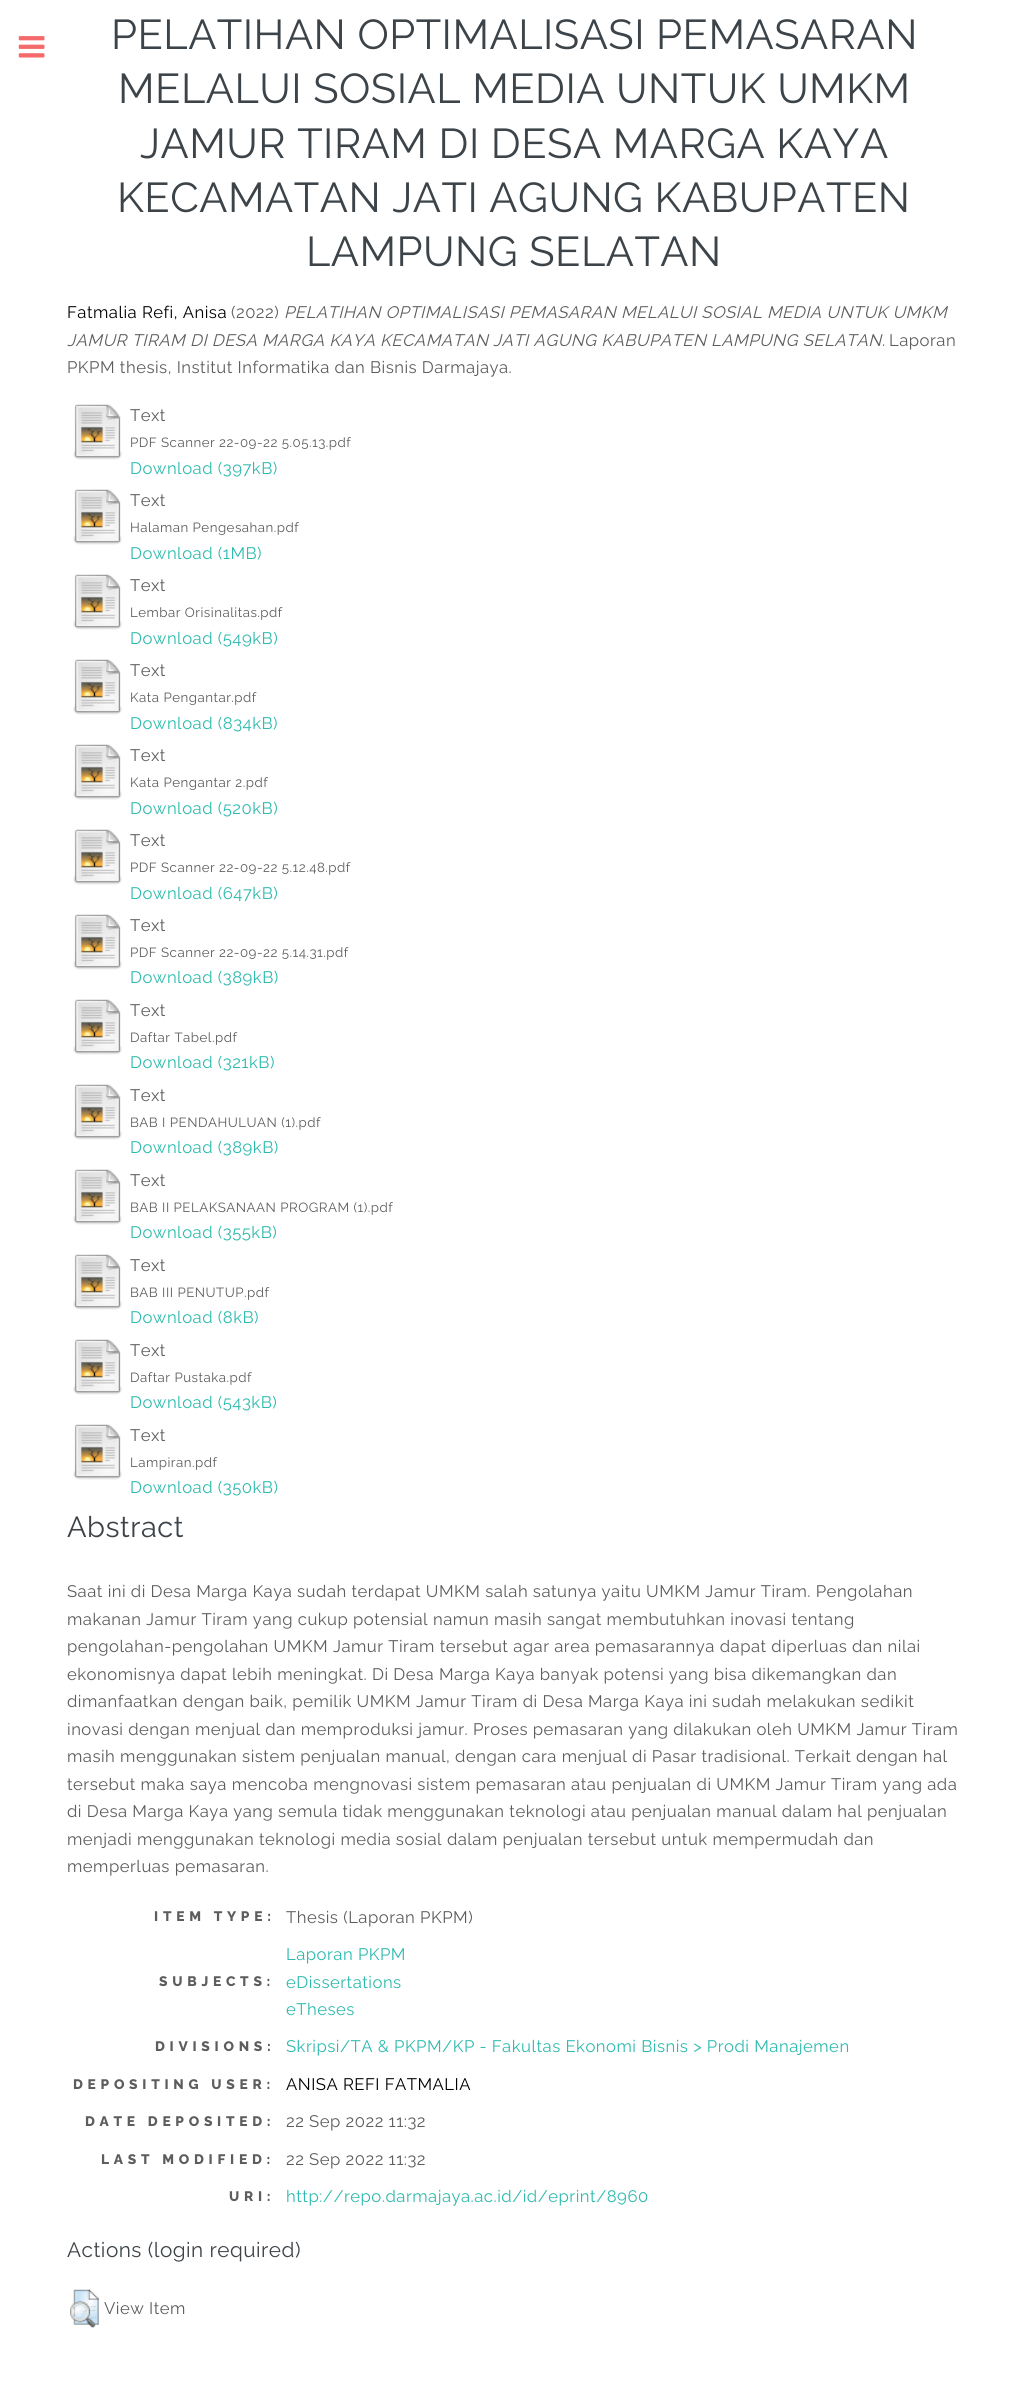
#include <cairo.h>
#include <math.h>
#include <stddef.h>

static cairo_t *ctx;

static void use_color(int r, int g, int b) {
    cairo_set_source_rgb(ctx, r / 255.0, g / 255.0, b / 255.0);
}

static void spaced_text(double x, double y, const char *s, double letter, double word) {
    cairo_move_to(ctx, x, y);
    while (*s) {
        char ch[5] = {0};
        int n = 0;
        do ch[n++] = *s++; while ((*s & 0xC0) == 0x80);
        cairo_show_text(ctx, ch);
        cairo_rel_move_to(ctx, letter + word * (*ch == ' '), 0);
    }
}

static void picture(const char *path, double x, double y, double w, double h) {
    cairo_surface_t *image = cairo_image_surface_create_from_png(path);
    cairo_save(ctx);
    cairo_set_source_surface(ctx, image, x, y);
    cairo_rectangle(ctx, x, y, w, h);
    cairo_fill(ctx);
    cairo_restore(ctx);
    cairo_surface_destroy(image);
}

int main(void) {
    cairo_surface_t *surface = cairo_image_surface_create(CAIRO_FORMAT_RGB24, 1027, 2389);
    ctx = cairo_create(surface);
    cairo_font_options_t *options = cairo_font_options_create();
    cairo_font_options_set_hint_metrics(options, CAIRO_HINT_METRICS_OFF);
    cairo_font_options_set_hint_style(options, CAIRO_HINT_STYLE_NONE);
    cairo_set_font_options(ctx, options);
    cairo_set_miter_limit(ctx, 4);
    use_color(255, 255, 255);
    cairo_paint(ctx);
    picture("img1.png", 18, 36, 27, 22);
    cairo_select_font_face(ctx, "Raleway", CAIRO_FONT_SLANT_NORMAL, CAIRO_FONT_WEIGHT_NORMAL);
    cairo_set_font_size(ctx, 41.7);
    use_color(61, 68, 73);
    spaced_text(111, 49, "PELATIHAN OPTIMALISASI PEMASARAN", 0.5, 0);
    spaced_text(118, 103, "MELALUI SOSIAL MEDIA UNTUK UMKM", 0.5, 0);
    spaced_text(140, 158, "JAMUR TIRAM DI DESA MARGA KAYA", 0.5, 0);
    spaced_text(117, 212, "KECAMATAN JATI AGUNG KABUPATEN", 0.5, 0);
    spaced_text(306, 266, "LAMPUNG SELATAN", 0.5, 0);
    cairo_set_font_size(ctx, 16.67);
    use_color(0, 0, 0);
    spaced_text(67, 318, "Fatmalia Refi, Anisa", 0.5, 0);
    use_color(93, 93, 93);
    spaced_text(231, 318, "(2022)", 0.5, 0);
    cairo_select_font_face(ctx, "Raleway", CAIRO_FONT_SLANT_ITALIC, CAIRO_FONT_WEIGHT_NORMAL);
    spaced_text(284, 318, "PELATIHAN OPTIMALISASI PEMASARAN MELALUI SOSIAL MEDIA UNTUK UMKM", 0.5, 0);
    spaced_text(67, 346, "JAMUR TIRAM DI DESA MARGA KAYA KECAMATAN JATI AGUNG KABUPATEN LAMPUNG SELATAN.", 0.5, 0);
    cairo_select_font_face(ctx, "Raleway", CAIRO_FONT_SLANT_NORMAL, CAIRO_FONT_WEIGHT_NORMAL);
    spaced_text(889, 346, "Laporan", 0.5, 0);
    spaced_text(67, 373, "PKPM thesis, Institut Informatika dan Bisnis Darmajaya.", 0.5, 0);
    picture("img2.png", 73, 404, 49, 56);
    spaced_text(130, 421, "Text", 0.5, 0);
    cairo_set_font_size(ctx, 13.3);
    spaced_text(130, 447, "PDF Scanner 22-09-22 5.05.13.pdf", 0.5, 0);
    cairo_set_font_size(ctx, 16.67);
    use_color(46, 186, 174);
    spaced_text(130, 474, "Download (397kB)", 0.5, 0);
    picture("img2.png", 73, 489, 49, 56);
    use_color(93, 93, 93);
    spaced_text(130, 506, "Text", 0.5, 0);
    cairo_set_font_size(ctx, 13.3);
    spaced_text(130, 532, "Halaman Pengesahan.pdf", 0.5, 0);
    cairo_set_font_size(ctx, 16.67);
    use_color(46, 186, 174);
    spaced_text(130, 559, "Download (1MB)", 0.5, 0);
    picture("img2.png", 73, 574, 49, 56);
    use_color(93, 93, 93);
    spaced_text(130, 591, "Text", 0.5, 0);
    cairo_set_font_size(ctx, 13.3);
    spaced_text(130, 617, "Lembar Orisinalitas.pdf", 0.5, 0);
    cairo_set_font_size(ctx, 16.67);
    use_color(46, 186, 174);
    spaced_text(130, 644, "Download (549kB)", 0.5, 0);
    picture("img2.png", 73, 659, 49, 56);
    use_color(93, 93, 93);
    spaced_text(130, 676, "Text", 0.5, 0);
    cairo_set_font_size(ctx, 13.3);
    spaced_text(130, 702, "Kata Pengantar.pdf", 0.5, 0);
    cairo_set_font_size(ctx, 16.67);
    use_color(46, 186, 174);
    spaced_text(130, 729, "Download (834kB)", 0.5, 0);
    picture("img2.png", 73, 744, 49, 56);
    use_color(93, 93, 93);
    spaced_text(130, 761, "Text", 0.5, 0);
    cairo_set_font_size(ctx, 13.3);
    spaced_text(130, 787, "Kata Pengantar 2.pdf", 0.5, 0);
    cairo_set_font_size(ctx, 16.67);
    use_color(46, 186, 174);
    spaced_text(130, 814, "Download (520kB)", 0.5, 0);
    picture("img2.png", 73, 829, 49, 56);
    use_color(93, 93, 93);
    spaced_text(130, 846, "Text", 0.5, 0);
    cairo_set_font_size(ctx, 13.3);
    spaced_text(130, 872, "PDF Scanner 22-09-22 5.12.48.pdf", 0.5, 0);
    cairo_set_font_size(ctx, 16.67);
    use_color(46, 186, 174);
    spaced_text(130, 899, "Download (647kB)", 0.5, 0);
    picture("img2.png", 73, 914, 49, 56);
    use_color(93, 93, 93);
    spaced_text(130, 931, "Text", 0.5, 0);
    cairo_set_font_size(ctx, 13.3);
    spaced_text(130, 957, "PDF Scanner 22-09-22 5.14.31.pdf", 0.5, 0);
    cairo_set_font_size(ctx, 16.67);
    use_color(46, 186, 174);
    spaced_text(130, 983, "Download (389kB)", 0.5, 0);
    picture("img2.png", 73, 999, 49, 56);
    use_color(93, 93, 93);
    spaced_text(130, 1016, "Text", 0.5, 0);
    cairo_set_font_size(ctx, 13.3);
    spaced_text(130, 1042, "Daftar Tabel.pdf", 0.5, 0);
    cairo_set_font_size(ctx, 16.67);
    use_color(46, 186, 174);
    spaced_text(130, 1068, "Download (321kB)", 0.5, 0);
    picture("img2.png", 73, 1084, 49, 56);
    use_color(93, 93, 93);
    spaced_text(130, 1101, "Text", 0.5, 0);
    cairo_set_font_size(ctx, 13.3);
    spaced_text(130, 1127, "BAB I PENDAHULUAN (1).pdf", 0.5, 0);
    cairo_set_font_size(ctx, 16.67);
    use_color(46, 186, 174);
    spaced_text(130, 1153, "Download (389kB)", 0.5, 0);
    picture("img2.png", 73, 1169, 49, 56);
    use_color(93, 93, 93);
    spaced_text(130, 1186, "Text", 0.5, 0);
    cairo_set_font_size(ctx, 13.3);
    spaced_text(130, 1212, "BAB II PELAKSANAAN PROGRAM (1).pdf", 0.5, 0);
    cairo_set_font_size(ctx, 16.67);
    use_color(46, 186, 174);
    spaced_text(130, 1238, "Download (355kB)", 0.5, 0);
    picture("img2.png", 73, 1254, 49, 56);
    use_color(93, 93, 93);
    spaced_text(130, 1271, "Text", 0.5, 0);
    cairo_set_font_size(ctx, 13.3);
    spaced_text(130, 1297, "BAB III PENUTUP.pdf", 0.5, 0);
    cairo_set_font_size(ctx, 16.67);
    use_color(46, 186, 174);
    spaced_text(130, 1323, "Download (8kB)", 0.5, 0);
    picture("img2.png", 73, 1339, 49, 56);
    use_color(93, 93, 93);
    spaced_text(130, 1356, "Text", 0.5, 0);
    cairo_set_font_size(ctx, 13.3);
    spaced_text(130, 1382, "Daftar Pustaka.pdf", 0.5, 0);
    cairo_set_font_size(ctx, 16.67);
    use_color(46, 186, 174);
    spaced_text(130, 1408, "Download (543kB)", 0.5, 0);
    picture("img2.png", 73, 1424, 49, 56);
    use_color(93, 93, 93);
    spaced_text(130, 1441, "Text", 0.5, 0);
    cairo_set_font_size(ctx, 13.3);
    spaced_text(130, 1467, "Lampiran.pdf", 0.5, 0);
    cairo_set_font_size(ctx, 16.67);
    use_color(46, 186, 174);
    spaced_text(130, 1493, "Download (350kB)", 0.5, 0);
    cairo_set_font_size(ctx, 29);
    use_color(61, 68, 73);
    spaced_text(67, 1537, "Abstract", 0.5, 0);
    cairo_set_font_size(ctx, 16.67);
    use_color(93, 93, 93);
    spaced_text(67, 1597, "Saat ini di Desa Marga Kaya sudah terdapat UMKM salah satunya yaitu UMKM Jamur Tiram. Pengolahan", 0.5, 0);
    spaced_text(67, 1625, "makanan Jamur Tiram yang cukup potensial namun masih sangat membutuhkan inovasi tentang", 0.5, 0);
    spaced_text(67, 1652, "pengolahan-pengolahan UMKM Jamur Tiram tersebut agar area pemasarannya dapat diperluas dan nilai", 0.5, 0);
    spaced_text(67, 1680, "ekonomisnya dapat lebih meningkat. Di Desa Marga Kaya banyak potensi yang bisa dikemangkan dan", 0.5, 0);
    spaced_text(67, 1707, "dimanfaatkan dengan baik, pemilik UMKM Jamur Tiram di Desa Marga Kaya ini sudah melakukan sedikit", 0.5, 0);
    spaced_text(67, 1735, "inovasi dengan menjual dan memproduksi jamur. Proses pemasaran yang dilakukan oleh UMKM Jamur Tiram", 0.5, 0);
    spaced_text(67, 1762, "masih menggunakan sistem penjualan manual, dengan cara menjual di Pasar tradisional. Terkait dengan hal", 0.5, 0);
    spaced_text(67, 1790, "tersebut maka saya mencoba mengnovasi sistem pemasaran atau penjualan di UMKM Jamur Tiram yang ada", 0.5, 0);
    spaced_text(67, 1817, "di Desa Marga Kaya yang semula tidak menggunakan teknologi atau penjualan manual dalam hal penjualan", 0.5, 0);
    spaced_text(67, 1845, "menjadi menggunakan teknologi media sosial dalam penjualan tersebut untuk mempermudah dan", 0.5, 0);
    spaced_text(67, 1872, "memperluas pemasaran.", 0.5, 0);
    cairo_select_font_face(ctx, "Raleway ExtraBold", CAIRO_FONT_SLANT_NORMAL, CAIRO_FONT_WEIGHT_NORMAL);
    cairo_set_font_size(ctx, 13.75);
    spaced_text(154, 1921, "ITEM TYPE:", 4.75, 0);
    cairo_select_font_face(ctx, "Raleway", CAIRO_FONT_SLANT_NORMAL, CAIRO_FONT_WEIGHT_NORMAL);
    cairo_set_font_size(ctx, 16.67);
    spaced_text(286, 1923, "Thesis (Laporan PKPM)", 0.5, 0);
    cairo_select_font_face(ctx, "Raleway ExtraBold", CAIRO_FONT_SLANT_NORMAL, CAIRO_FONT_WEIGHT_NORMAL);
    cairo_set_font_size(ctx, 13.75);
    spaced_text(159, 1986, "SUBJECTS:", 4.75, 0);
    cairo_select_font_face(ctx, "Raleway", CAIRO_FONT_SLANT_NORMAL, CAIRO_FONT_WEIGHT_NORMAL);
    cairo_set_font_size(ctx, 16.67);
    use_color(46, 186, 174);
    spaced_text(286, 1960, "Laporan PKPM", 0.5, 0);
    spaced_text(286, 1988, "eDissertations", 0.5, 0);
    spaced_text(286, 2015, "eTheses", 0.5, 0);
    cairo_select_font_face(ctx, "Raleway ExtraBold", CAIRO_FONT_SLANT_NORMAL, CAIRO_FONT_WEIGHT_NORMAL);
    cairo_set_font_size(ctx, 13.75);
    use_color(93, 93, 93);
    spaced_text(155, 2051, "DIVISIONS:", 4.75, 0);
    cairo_select_font_face(ctx, "Raleway", CAIRO_FONT_SLANT_NORMAL, CAIRO_FONT_WEIGHT_NORMAL);
    cairo_set_font_size(ctx, 16.67);
    use_color(46, 186, 174);
    spaced_text(286, 2052, "Skripsi/TA & PKPM/KP - Fakultas Ekonomi Bisnis > Prodi Manajemen", 0.5, 0);
    cairo_select_font_face(ctx, "Raleway ExtraBold", CAIRO_FONT_SLANT_NORMAL, CAIRO_FONT_WEIGHT_NORMAL);
    cairo_set_font_size(ctx, 13.75);
    use_color(93, 93, 93);
    spaced_text(73, 2089, "DEPOSITING USER:", 4.75, 0);
    cairo_select_font_face(ctx, "Raleway", CAIRO_FONT_SLANT_NORMAL, CAIRO_FONT_WEIGHT_NORMAL);
    cairo_set_font_size(ctx, 16.67);
    use_color(0, 0, 0);
    spaced_text(286, 2090, "ANISA REFI FATMALIA", 0.5, 0);
    cairo_select_font_face(ctx, "Raleway ExtraBold", CAIRO_FONT_SLANT_NORMAL, CAIRO_FONT_WEIGHT_NORMAL);
    cairo_set_font_size(ctx, 13.75);
    use_color(93, 93, 93);
    spaced_text(85, 2126, "DATE DEPOSITED:", 4.75, 0);
    cairo_select_font_face(ctx, "Raleway", CAIRO_FONT_SLANT_NORMAL, CAIRO_FONT_WEIGHT_NORMAL);
    cairo_set_font_size(ctx, 16.67);
    spaced_text(286, 2127, "22 Sep 2022 11:32", 0.5, 0);
    cairo_select_font_face(ctx, "Raleway ExtraBold", CAIRO_FONT_SLANT_NORMAL, CAIRO_FONT_WEIGHT_NORMAL);
    cairo_set_font_size(ctx, 13.75);
    spaced_text(101, 2164, "LAST MODIFIED:", 4.75, 0);
    cairo_select_font_face(ctx, "Raleway", CAIRO_FONT_SLANT_NORMAL, CAIRO_FONT_WEIGHT_NORMAL);
    cairo_set_font_size(ctx, 16.67);
    spaced_text(286, 2165, "22 Sep 2022 11:32", 0.5, 0);
    cairo_select_font_face(ctx, "Raleway ExtraBold", CAIRO_FONT_SLANT_NORMAL, CAIRO_FONT_WEIGHT_NORMAL);
    cairo_set_font_size(ctx, 13.75);
    spaced_text(229, 2201, "URI:", 4.75, 0);
    cairo_select_font_face(ctx, "Raleway", CAIRO_FONT_SLANT_NORMAL, CAIRO_FONT_WEIGHT_NORMAL);
    cairo_set_font_size(ctx, 16.67);
    use_color(46, 186, 174);
    spaced_text(286, 2202, "http://repo.darmajaya.ac.id/id/eprint/8960", 0.5, 0);
    cairo_set_font_size(ctx, 20.75);
    use_color(61, 68, 73);
    spaced_text(67, 2257, "Actions (login required)", 0.5, 0);
    picture("img3.png", 70, 2289, 29, 39);
    cairo_set_font_size(ctx, 16.67);
    use_color(93, 93, 93);
    spaced_text(104, 2314, "View Item", 0.5, 0);
    cairo_surface_write_to_png(surface, "result.png");
    cairo_font_options_destroy(options);
    cairo_destroy(ctx);
    cairo_surface_destroy(surface);
    return 0;
}
